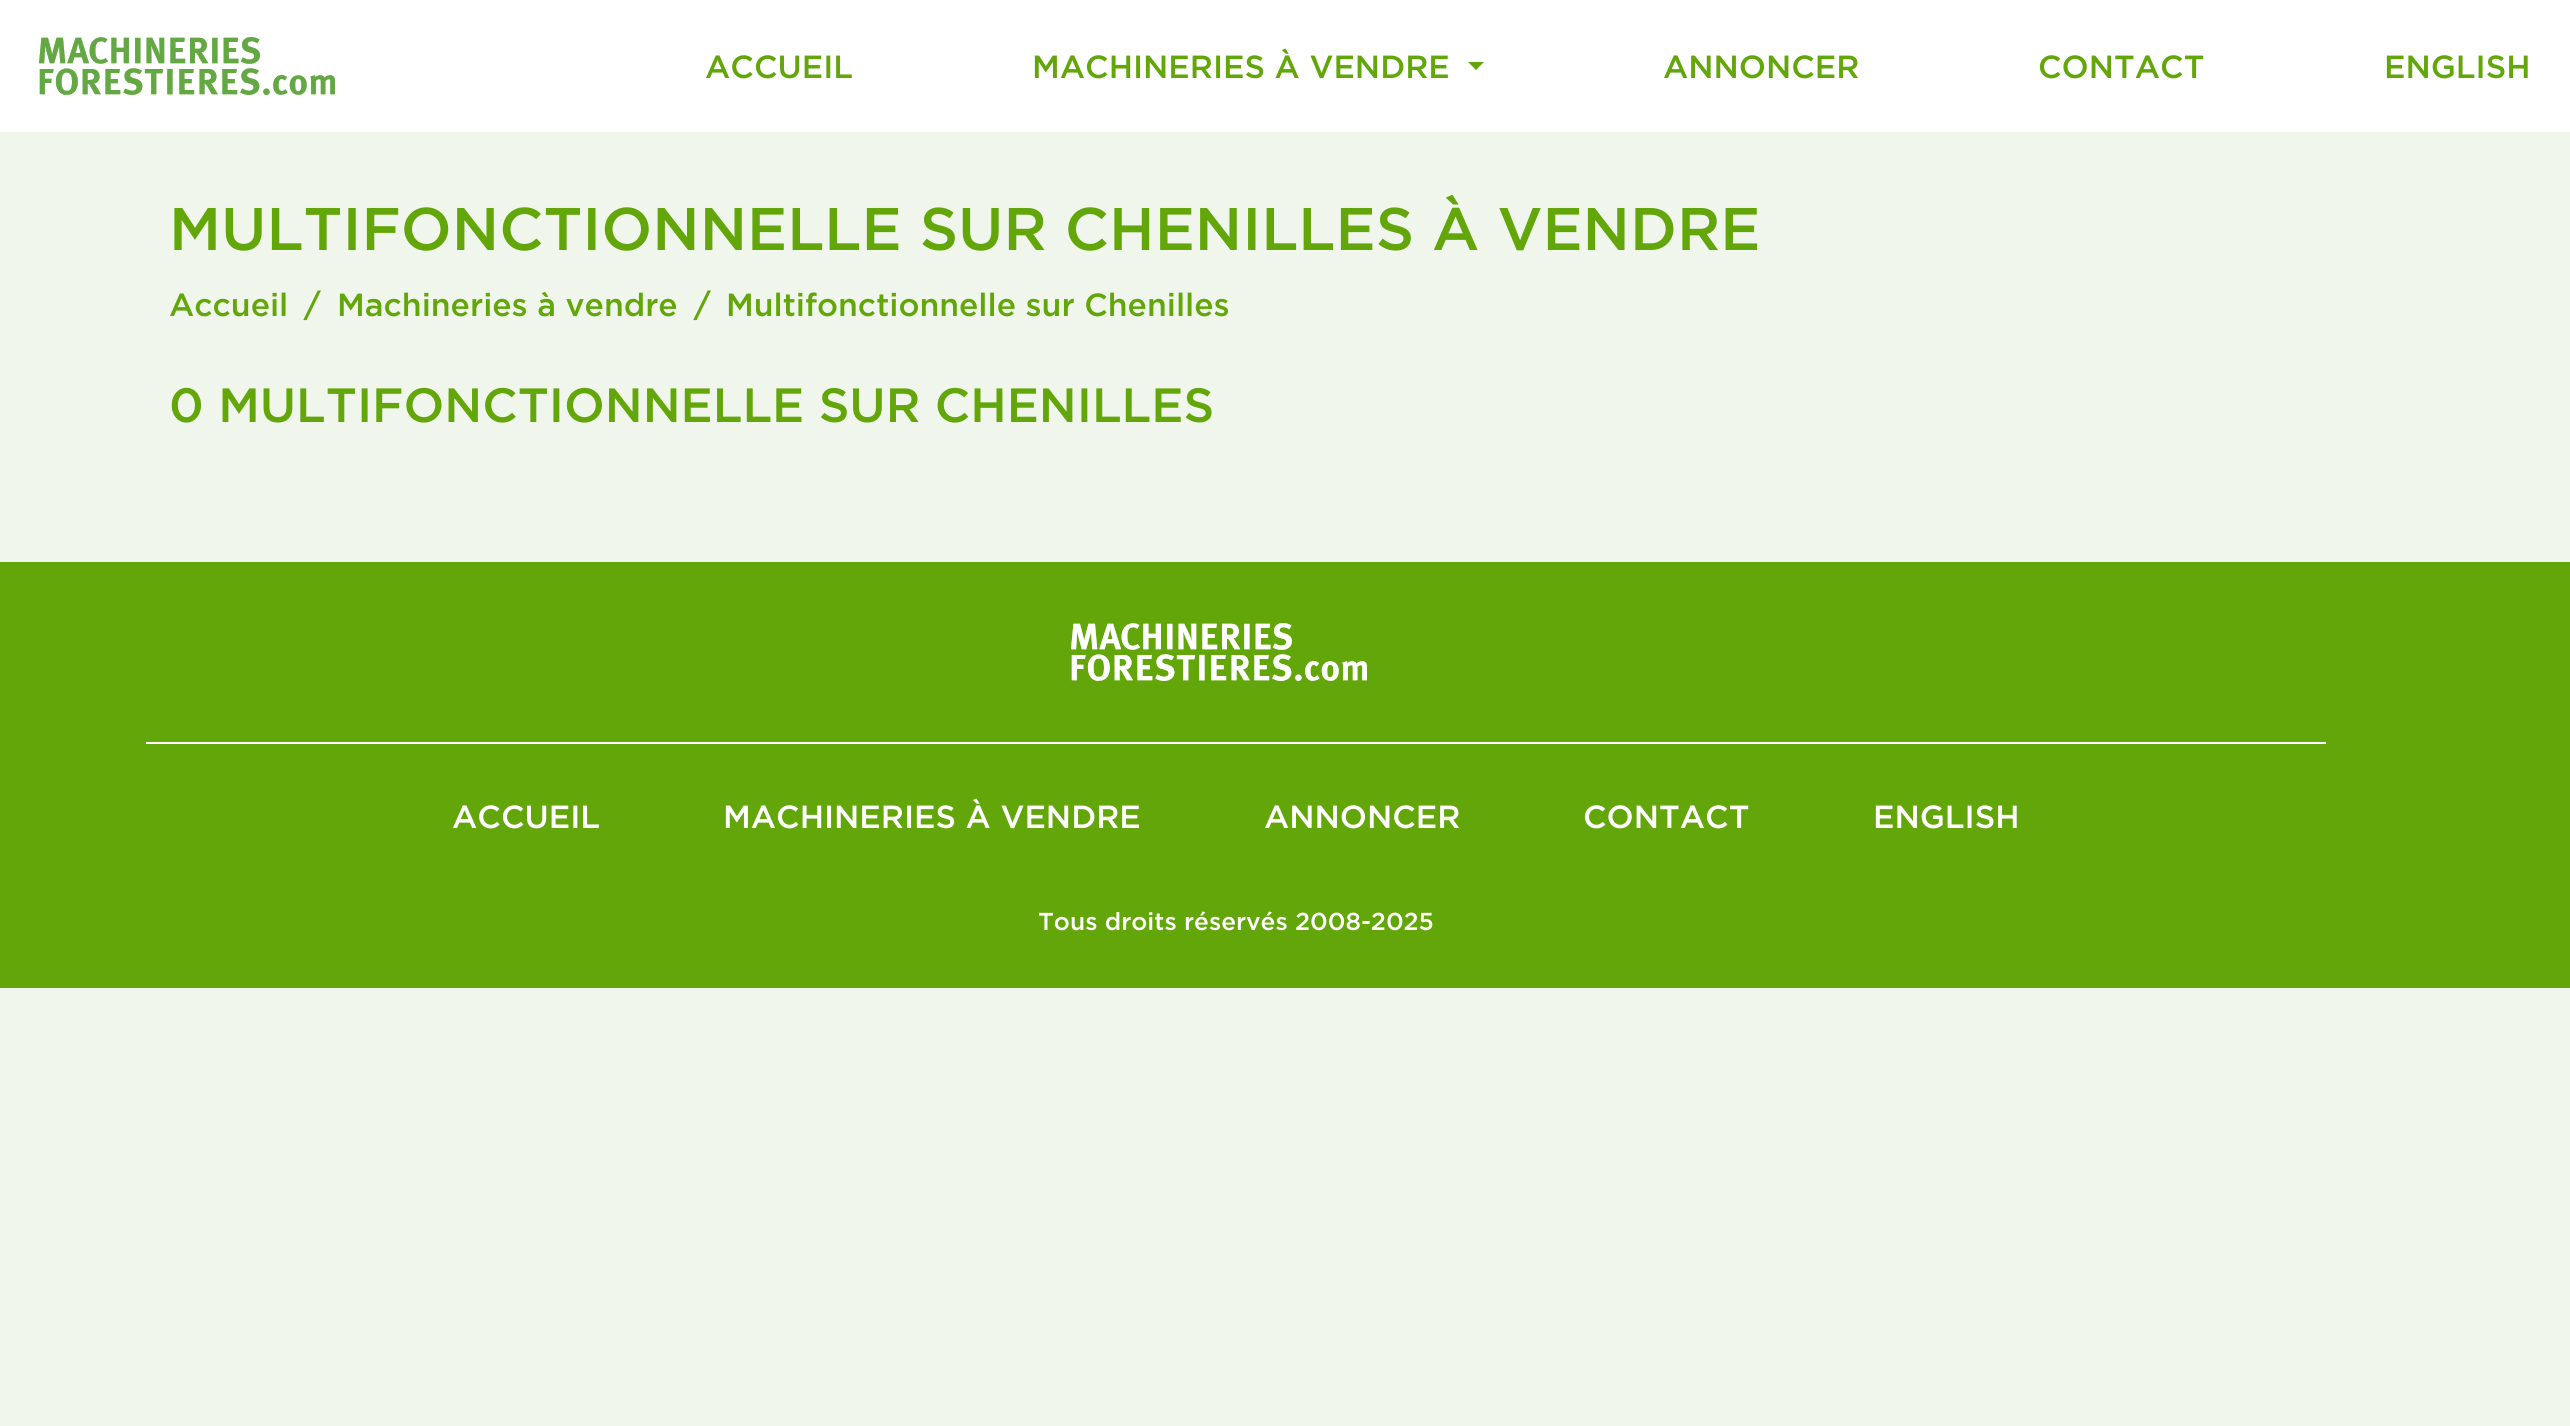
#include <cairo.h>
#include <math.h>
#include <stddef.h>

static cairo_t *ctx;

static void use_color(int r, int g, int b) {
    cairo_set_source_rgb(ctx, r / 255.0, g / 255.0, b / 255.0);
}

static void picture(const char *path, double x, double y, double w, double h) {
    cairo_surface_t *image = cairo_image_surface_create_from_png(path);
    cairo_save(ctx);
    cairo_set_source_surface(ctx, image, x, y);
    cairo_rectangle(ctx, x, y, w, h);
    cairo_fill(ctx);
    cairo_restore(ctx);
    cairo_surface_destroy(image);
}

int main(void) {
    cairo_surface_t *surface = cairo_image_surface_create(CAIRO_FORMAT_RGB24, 2570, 1426);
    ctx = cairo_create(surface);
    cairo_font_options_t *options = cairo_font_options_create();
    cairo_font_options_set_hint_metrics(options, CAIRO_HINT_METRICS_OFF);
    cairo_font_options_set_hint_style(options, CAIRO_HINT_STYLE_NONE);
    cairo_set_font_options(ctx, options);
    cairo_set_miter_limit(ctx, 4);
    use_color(240, 246, 235);
    cairo_paint(ctx);
    use_color(255, 255, 255);
    cairo_rectangle(ctx, 0, 0, 2570, 132);
    cairo_fill(ctx);
    picture("img1.png", 39, 37, 296, 58);
    cairo_select_font_face(ctx, "Gotham Medium", CAIRO_FONT_SLANT_NORMAL, CAIRO_FONT_WEIGHT_NORMAL);
    cairo_set_font_size(ctx, 32);
    use_color(98, 166, 10);
    cairo_move_to(ctx, 705, 78);
    cairo_show_text(ctx, "ACCUEIL");
    cairo_move_to(ctx, 1032, 78);
    cairo_show_text(ctx, "MACHINERIES À VENDRE");
    cairo_new_path(ctx);
    cairo_move_to(ctx, 1468, 62);
    cairo_line_to(ctx, 1484, 62);
    cairo_line_to(ctx, 1476, 70);
    cairo_close_path(ctx);
    cairo_fill(ctx);
    cairo_move_to(ctx, 1663, 78);
    cairo_show_text(ctx, "ANNONCER");
    cairo_move_to(ctx, 2038, 78);
    cairo_show_text(ctx, "CONTACT");
    cairo_move_to(ctx, 2384, 78);
    cairo_show_text(ctx, "ENGLISH");
    cairo_set_font_size(ctx, 60);
    cairo_move_to(ctx, 169, 250);
    cairo_show_text(ctx, "MULTIFONCTIONNELLE SUR CHENILLES À VENDRE");
    cairo_set_font_size(ctx, 32);
    cairo_move_to(ctx, 169, 316);
    cairo_show_text(ctx, "Accueil");
    cairo_move_to(ctx, 304, 316);
    cairo_show_text(ctx, "/");
    cairo_move_to(ctx, 337, 316);
    cairo_show_text(ctx, "Machineries à vendre");
    cairo_move_to(ctx, 694, 316);
    cairo_show_text(ctx, "/");
    cairo_move_to(ctx, 726, 316);
    cairo_show_text(ctx, "Multifonctionnelle sur Chenilles");
    cairo_set_font_size(ctx, 48);
    cairo_move_to(ctx, 169, 422);
    cairo_show_text(ctx, "0 MULTIFONCTIONNELLE SUR CHENILLES");
    cairo_rectangle(ctx, 0, 562, 2570, 426);
    cairo_fill(ctx);
    picture("img2.png", 1071, 623, 296, 58);
    use_color(255, 255, 255);
    cairo_rectangle(ctx, 146, 742, 2180, 2);
    cairo_fill(ctx);
    cairo_set_font_size(ctx, 32);
    cairo_move_to(ctx, 452, 828);
    cairo_show_text(ctx, "ACCUEIL");
    cairo_move_to(ctx, 723, 828);
    cairo_show_text(ctx, "MACHINERIES À VENDRE");
    cairo_move_to(ctx, 1264, 828);
    cairo_show_text(ctx, "ANNONCER");
    cairo_move_to(ctx, 1583, 828);
    cairo_show_text(ctx, "CONTACT");
    cairo_move_to(ctx, 1873, 828);
    cairo_show_text(ctx, "ENGLISH");
    cairo_set_font_size(ctx, 24.5);
    cairo_move_to(ctx, 1038, 930);
    cairo_show_text(ctx, "Tous droits réservés 2008-2025");
    cairo_surface_write_to_png(surface, "result.png");
    cairo_font_options_destroy(options);
    cairo_destroy(ctx);
    cairo_surface_destroy(surface);
    return 0;
}
